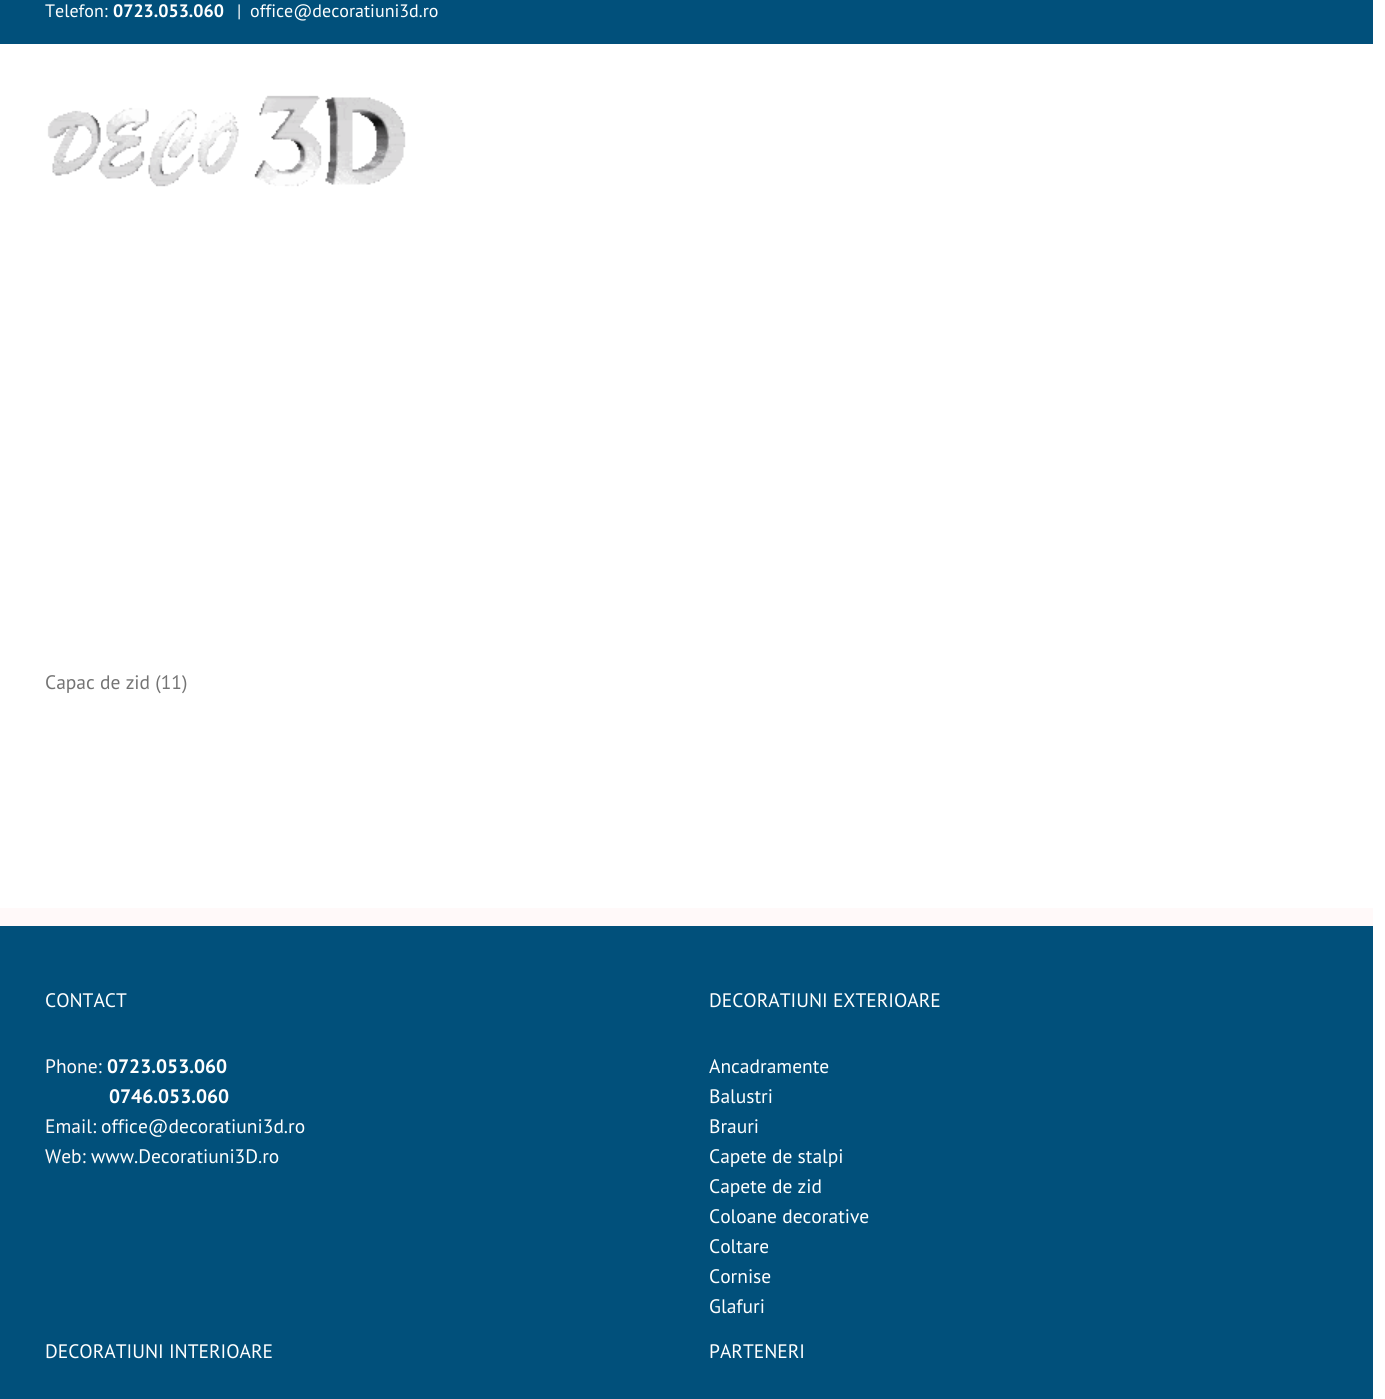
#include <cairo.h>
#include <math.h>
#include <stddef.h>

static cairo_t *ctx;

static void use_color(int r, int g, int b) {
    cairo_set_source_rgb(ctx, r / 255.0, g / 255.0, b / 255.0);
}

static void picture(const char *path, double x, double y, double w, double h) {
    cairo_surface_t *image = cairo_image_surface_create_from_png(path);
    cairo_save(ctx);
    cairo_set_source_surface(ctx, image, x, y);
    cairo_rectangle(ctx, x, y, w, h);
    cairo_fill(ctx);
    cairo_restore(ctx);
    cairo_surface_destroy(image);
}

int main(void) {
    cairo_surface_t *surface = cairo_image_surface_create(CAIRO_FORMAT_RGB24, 1385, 1399);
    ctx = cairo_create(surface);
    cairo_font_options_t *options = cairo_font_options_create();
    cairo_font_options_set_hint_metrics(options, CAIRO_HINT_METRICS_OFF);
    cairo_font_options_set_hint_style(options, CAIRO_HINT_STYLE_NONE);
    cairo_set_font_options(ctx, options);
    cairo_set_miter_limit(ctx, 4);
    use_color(255, 255, 255);
    cairo_paint(ctx);
    use_color(1, 80, 123);
    cairo_rectangle(ctx, 0, 0, 1373, 44);
    cairo_fill(ctx);
    cairo_select_font_face(ctx, "PT Sans", CAIRO_FONT_SLANT_NORMAL, CAIRO_FONT_WEIGHT_NORMAL);
    cairo_set_font_size(ctx, 18);
    use_color(255, 255, 255);
    cairo_move_to(ctx, 45, 17);
    cairo_show_text(ctx, "Telefon:");
    cairo_select_font_face(ctx, "PT Sans", CAIRO_FONT_SLANT_NORMAL, CAIRO_FONT_WEIGHT_BOLD);
    cairo_move_to(ctx, 113, 17);
    cairo_show_text(ctx, "0723.053.060");
    cairo_select_font_face(ctx, "PT Sans", CAIRO_FONT_SLANT_NORMAL, CAIRO_FONT_WEIGHT_NORMAL);
    cairo_move_to(ctx, 237, 17);
    cairo_show_text(ctx, "|");
    cairo_move_to(ctx, 250, 17);
    cairo_show_text(ctx, "office@decoratiuni3d.ro");
    picture("img1.png", 47, 95, 359, 92);
    cairo_set_font_size(ctx, 19.5);
    use_color(116, 116, 116);
    cairo_move_to(ctx, 45, 689);
    cairo_show_text(ctx, "Capac de zid (11)");
    use_color(1, 80, 123);
    cairo_rectangle(ctx, 0, 926, 1373, 473);
    cairo_fill(ctx);
    use_color(255, 249, 249);
    cairo_rectangle(ctx, 0, 908, 1373, 18);
    cairo_fill(ctx);
    use_color(255, 255, 255);
    cairo_move_to(ctx, 45, 1007);
    cairo_show_text(ctx, "CONTACT");
    use_color(255, 249, 249);
    cairo_move_to(ctx, 45, 1073);
    cairo_show_text(ctx, "Phone:");
    cairo_select_font_face(ctx, "PT Sans", CAIRO_FONT_SLANT_NORMAL, CAIRO_FONT_WEIGHT_BOLD);
    use_color(255, 255, 255);
    cairo_move_to(ctx, 107, 1073);
    cairo_show_text(ctx, "0723.053.060");
    cairo_move_to(ctx, 109, 1103);
    cairo_show_text(ctx, "0746.053.060");
    cairo_select_font_face(ctx, "PT Sans", CAIRO_FONT_SLANT_NORMAL, CAIRO_FONT_WEIGHT_NORMAL);
    use_color(255, 249, 249);
    cairo_move_to(ctx, 45, 1133);
    cairo_show_text(ctx, "Email:");
    use_color(255, 255, 255);
    cairo_move_to(ctx, 101, 1133);
    cairo_show_text(ctx, "office@decoratiuni3d.ro");
    use_color(255, 249, 249);
    cairo_move_to(ctx, 45, 1163);
    cairo_show_text(ctx, "Web:");
    use_color(255, 255, 255);
    cairo_move_to(ctx, 91, 1163);
    cairo_show_text(ctx, "www.Decoratiuni3D.ro");
    cairo_move_to(ctx, 709, 1007);
    cairo_show_text(ctx, "DECORATIUNI EXTERIOARE");
    cairo_move_to(ctx, 709, 1073);
    cairo_show_text(ctx, "Ancadramente");
    cairo_move_to(ctx, 709, 1103);
    cairo_show_text(ctx, "Balustri");
    cairo_move_to(ctx, 709, 1133);
    cairo_show_text(ctx, "Brauri");
    cairo_move_to(ctx, 709, 1163);
    cairo_show_text(ctx, "Capete de stalpi");
    cairo_move_to(ctx, 709, 1193);
    cairo_show_text(ctx, "Capete de zid");
    cairo_move_to(ctx, 709, 1223);
    cairo_show_text(ctx, "Coloane decorative");
    cairo_move_to(ctx, 709, 1253);
    cairo_show_text(ctx, "Coltare");
    cairo_move_to(ctx, 709, 1283);
    cairo_show_text(ctx, "Cornise");
    cairo_move_to(ctx, 709, 1313);
    cairo_show_text(ctx, "Glafuri");
    cairo_move_to(ctx, 45, 1358);
    cairo_show_text(ctx, "DECORATIUNI INTERIOARE");
    cairo_move_to(ctx, 709, 1358);
    cairo_show_text(ctx, "PARTENERI");
    cairo_surface_write_to_png(surface, "result.png");
    cairo_font_options_destroy(options);
    cairo_destroy(ctx);
    cairo_surface_destroy(surface);
    return 0;
}
